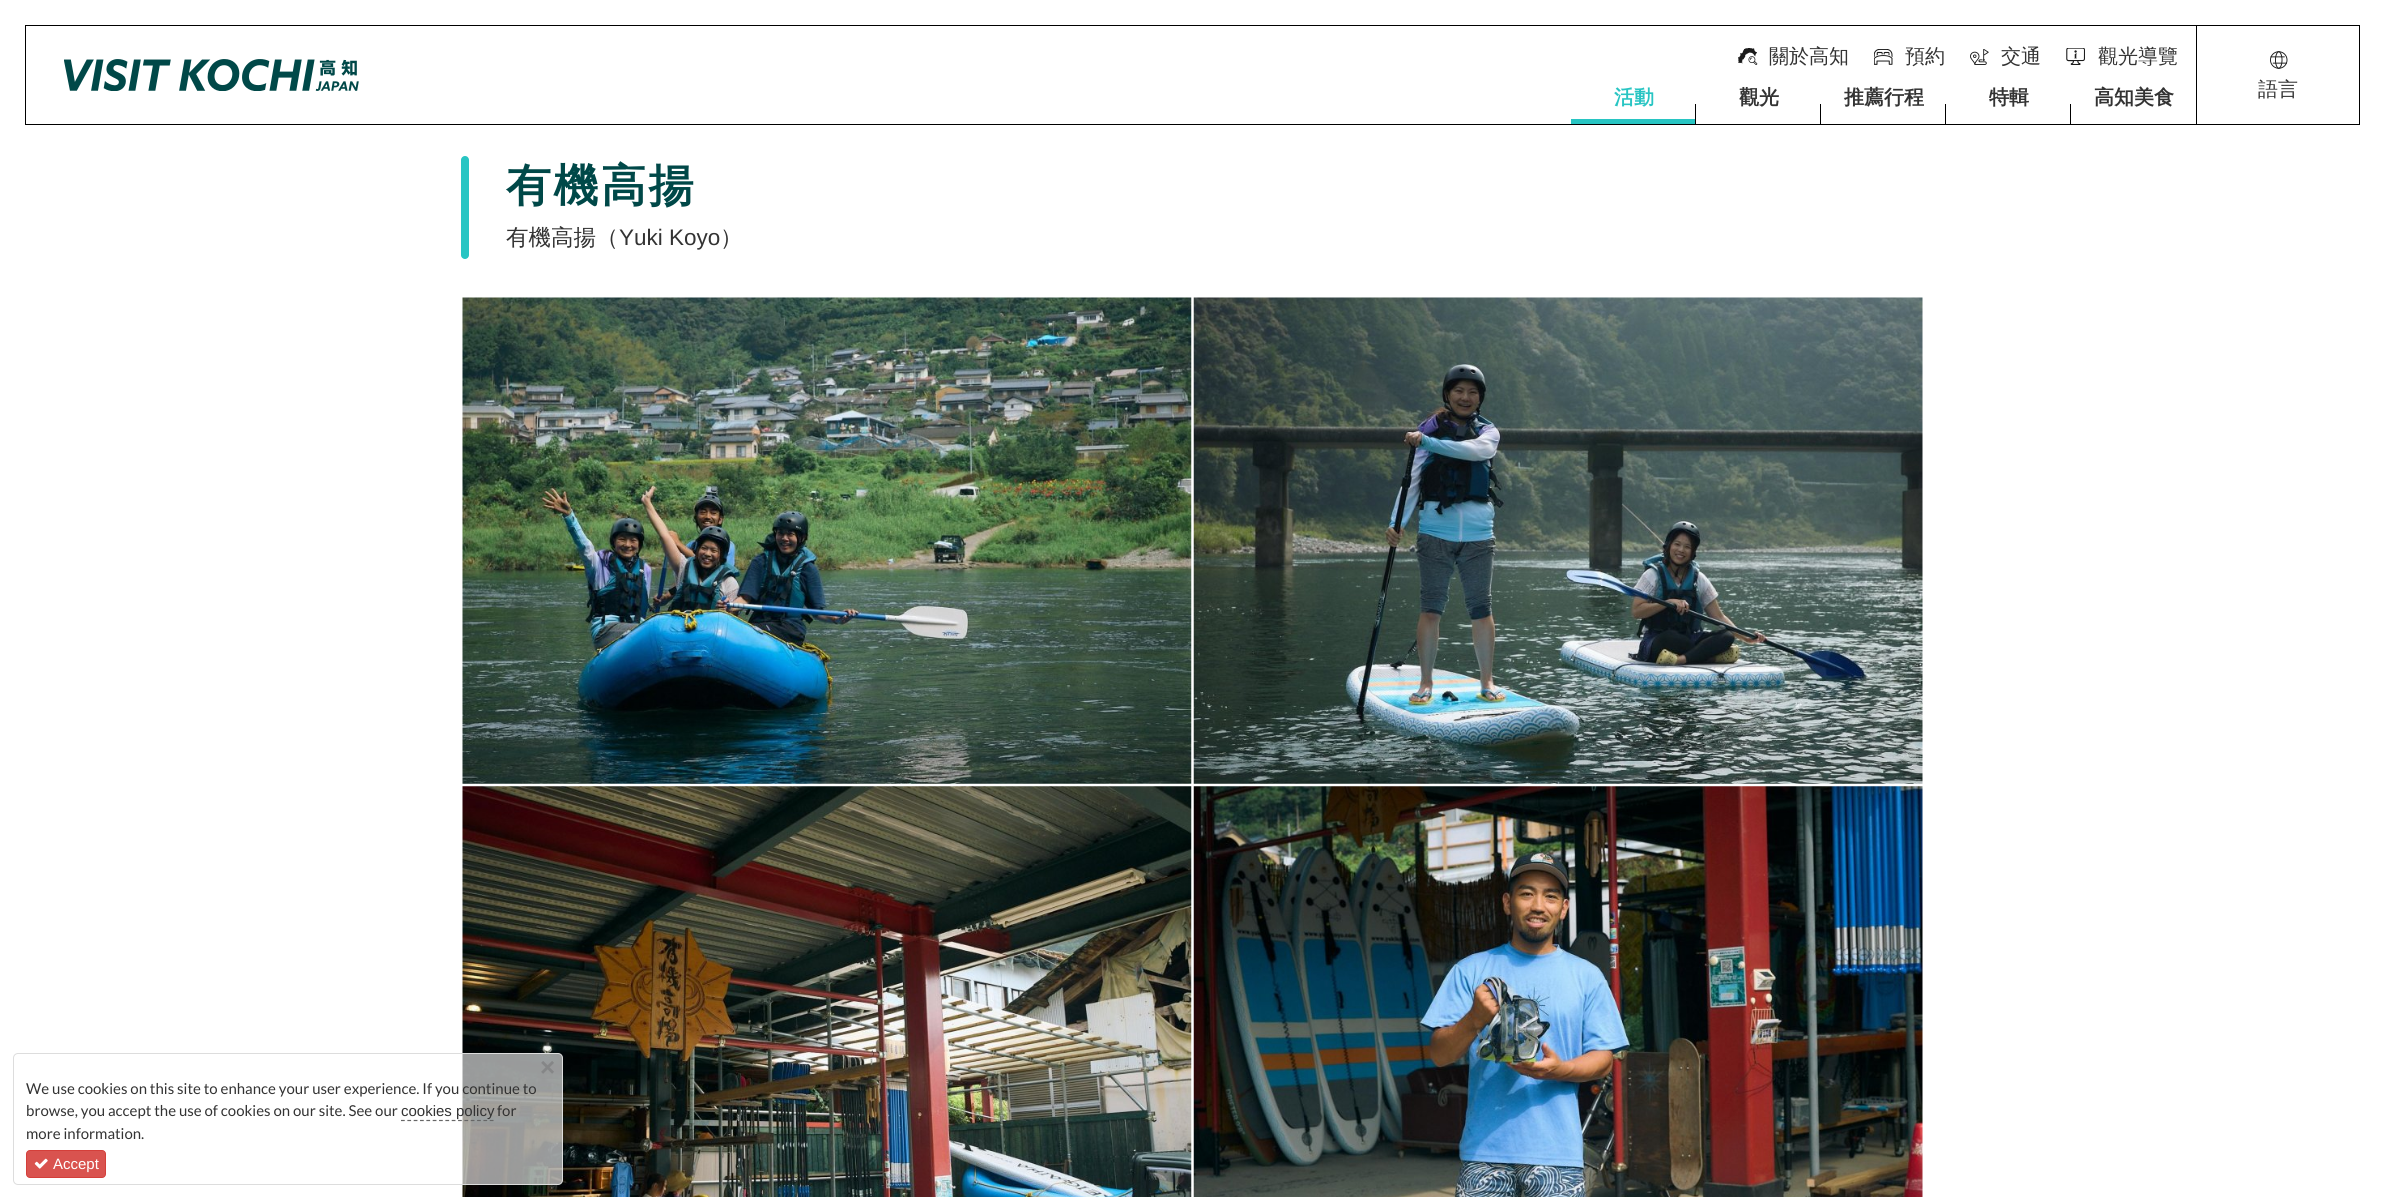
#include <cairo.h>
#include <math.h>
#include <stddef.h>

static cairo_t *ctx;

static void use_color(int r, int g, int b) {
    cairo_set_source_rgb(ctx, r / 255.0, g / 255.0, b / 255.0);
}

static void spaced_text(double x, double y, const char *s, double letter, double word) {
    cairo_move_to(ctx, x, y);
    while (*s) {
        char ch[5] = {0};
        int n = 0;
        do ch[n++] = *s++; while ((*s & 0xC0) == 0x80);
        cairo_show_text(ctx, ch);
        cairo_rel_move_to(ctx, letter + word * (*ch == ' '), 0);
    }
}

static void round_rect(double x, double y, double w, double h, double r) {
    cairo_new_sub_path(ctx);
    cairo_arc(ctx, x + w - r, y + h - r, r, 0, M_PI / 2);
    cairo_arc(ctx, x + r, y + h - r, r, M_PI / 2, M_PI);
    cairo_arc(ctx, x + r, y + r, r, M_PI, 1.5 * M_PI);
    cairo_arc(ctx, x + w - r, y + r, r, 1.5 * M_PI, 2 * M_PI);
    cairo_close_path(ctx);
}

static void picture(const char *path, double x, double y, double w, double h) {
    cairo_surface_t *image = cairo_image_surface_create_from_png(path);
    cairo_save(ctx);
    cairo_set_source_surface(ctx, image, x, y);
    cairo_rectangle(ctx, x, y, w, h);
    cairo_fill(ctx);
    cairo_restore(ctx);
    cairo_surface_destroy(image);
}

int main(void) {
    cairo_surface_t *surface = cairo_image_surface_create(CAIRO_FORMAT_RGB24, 2385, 1197);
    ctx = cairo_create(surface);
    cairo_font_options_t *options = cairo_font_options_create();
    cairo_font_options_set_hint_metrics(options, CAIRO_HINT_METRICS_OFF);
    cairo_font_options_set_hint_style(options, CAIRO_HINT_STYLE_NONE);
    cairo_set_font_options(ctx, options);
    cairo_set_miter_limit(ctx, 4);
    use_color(255, 255, 255);
    cairo_paint(ctx);
    cairo_rectangle(ctx, 25.5, 25.5, 2334, 99);
    use_color(0, 0, 0);
    cairo_set_line_width(ctx, 1);
    cairo_stroke(ctx);
    picture("img1.png", 64, 59, 295, 32);
    picture("img2.png", 1738, 48, 20, 17);
    cairo_select_font_face(ctx, "WenQuanYi Zen Hei Medium", CAIRO_FONT_SLANT_NORMAL, CAIRO_FONT_WEIGHT_NORMAL);
    cairo_set_font_size(ctx, 20);
    use_color(51, 51, 51);
    cairo_move_to(ctx, 1769, 63);
    cairo_show_text(ctx, "關於高知");
    picture("img3.png", 1874, 49, 19, 16);
    cairo_move_to(ctx, 1905, 63);
    cairo_show_text(ctx, "預約");
    picture("img4.png", 1970, 49, 19, 16);
    cairo_move_to(ctx, 2001, 63);
    cairo_show_text(ctx, "交通");
    picture("img5.png", 2066, 48, 19, 17);
    cairo_move_to(ctx, 2098, 63);
    cairo_show_text(ctx, "觀光導覽");
    use_color(40, 197, 195);
    cairo_rectangle(ctx, 1571, 119, 125, 5);
    cairo_fill(ctx);
    cairo_select_font_face(ctx, "WenQuanYi Zen Hei", CAIRO_FONT_SLANT_NORMAL, CAIRO_FONT_WEIGHT_BOLD);
    cairo_move_to(ctx, 1614, 104);
    cairo_show_text(ctx, "活動");
    use_color(0, 0, 0);
    cairo_rectangle(ctx, 1695, 104, 1, 20);
    cairo_fill(ctx);
    use_color(51, 51, 51);
    cairo_move_to(ctx, 1739, 104);
    cairo_show_text(ctx, "觀光");
    use_color(0, 0, 0);
    cairo_rectangle(ctx, 1820, 104, 1, 20);
    cairo_fill(ctx);
    use_color(51, 51, 51);
    cairo_move_to(ctx, 1844, 104);
    cairo_show_text(ctx, "推薦行程");
    use_color(0, 0, 0);
    cairo_rectangle(ctx, 1945, 104, 1, 20);
    cairo_fill(ctx);
    use_color(51, 51, 51);
    cairo_move_to(ctx, 1989, 104);
    cairo_show_text(ctx, "特輯");
    use_color(0, 0, 0);
    cairo_rectangle(ctx, 2070, 104, 1, 20);
    cairo_fill(ctx);
    use_color(51, 51, 51);
    cairo_move_to(ctx, 2094, 104);
    cairo_show_text(ctx, "高知美食");
    use_color(0, 0, 0);
    cairo_rectangle(ctx, 2196, 26, 1, 98);
    cairo_fill(ctx);
    picture("img6.png", 2270, 51, 18, 18);
    cairo_select_font_face(ctx, "WenQuanYi Zen Hei Medium", CAIRO_FONT_SLANT_NORMAL, CAIRO_FONT_WEIGHT_NORMAL);
    use_color(51, 51, 51);
    cairo_move_to(ctx, 2258, 96);
    cairo_show_text(ctx, "語言");
    use_color(40, 197, 195);
    round_rect(461, 156, 8, 103, 4);
    cairo_fill(ctx);
    cairo_select_font_face(ctx, "WenQuanYi Zen Hei", CAIRO_FONT_SLANT_NORMAL, CAIRO_FONT_WEIGHT_BOLD);
    cairo_set_font_size(ctx, 45);
    use_color(0, 72, 72);
    spaced_text(506, 201, "有機高揚", 2.5, 0);
    cairo_select_font_face(ctx, "WenQuanYi Zen Hei Medium", CAIRO_FONT_SLANT_NORMAL, CAIRO_FONT_WEIGHT_NORMAL);
    cairo_set_font_size(ctx, 22.5);
    use_color(51, 51, 51);
    cairo_move_to(ctx, 506, 245);
    cairo_show_text(ctx, "有機高揚（");
    cairo_select_font_face(ctx, "Liberation Sans", CAIRO_FONT_SLANT_NORMAL, CAIRO_FONT_WEIGHT_NORMAL);
    cairo_move_to(ctx, 619, 245);
    cairo_show_text(ctx, "Yuki Koyo");
    cairo_select_font_face(ctx, "WenQuanYi Zen Hei Medium", CAIRO_FONT_SLANT_NORMAL, CAIRO_FONT_WEIGHT_NORMAL);
    cairo_move_to(ctx, 720, 245);
    cairo_show_text(ctx, "）");
    picture("img7.png", 462, 297, 730, 487);
    picture("img8.png", 1193, 297, 730, 487);
    picture("img9.png", 462, 786, 730, 411);
    picture("img10.png", 1193, 786, 730, 411);
    cairo_set_source_rgba(ctx, 1, 1, 1, 0.6);
    round_rect(13.5, 1053.5, 549, 131, 4.5);
    cairo_fill_preserve(ctx);
    use_color(221, 221, 221);
    cairo_stroke(ctx);
    cairo_select_font_face(ctx, "Liberation Sans", CAIRO_FONT_SLANT_NORMAL, CAIRO_FONT_WEIGHT_BOLD);
    cairo_set_font_size(ctx, 26);
    use_color(133, 134, 135);
    cairo_move_to(ctx, 540, 1076);
    cairo_show_text(ctx, "×");
    cairo_select_font_face(ctx, "Lato", CAIRO_FONT_SLANT_NORMAL, CAIRO_FONT_WEIGHT_NORMAL);
    cairo_set_font_size(ctx, 15);
    use_color(51, 51, 51);
    cairo_move_to(ctx, 26, 1094);
    cairo_show_text(ctx, "We use cookies on this site to enhance your user experience. If you continue to");
    cairo_move_to(ctx, 26, 1116);
    cairo_show_text(ctx, "browse, you accept the use of cookies on our site. See our");
    cairo_new_path(ctx);
    cairo_move_to(ctx, 401, 1120.5);
    cairo_line_to(ctx, 494, 1120.5);
    use_color(102, 102, 102);
    cairo_set_line_width(ctx, 1.2);
    cairo_set_dash(ctx, (double[]){3.75, 2.59}, 2, 0);
    cairo_stroke(ctx);
    cairo_select_font_face(ctx, "Liberation Sans", CAIRO_FONT_SLANT_NORMAL, CAIRO_FONT_WEIGHT_NORMAL);
    use_color(51, 51, 51);
    cairo_move_to(ctx, 401, 1116);
    cairo_show_text(ctx, "cookies policy");
    cairo_select_font_face(ctx, "Lato", CAIRO_FONT_SLANT_NORMAL, CAIRO_FONT_WEIGHT_NORMAL);
    cairo_move_to(ctx, 497, 1116);
    cairo_show_text(ctx, "for");
    cairo_move_to(ctx, 26, 1139);
    cairo_show_text(ctx, "more information.");
    use_color(217, 83, 79);
    round_rect(26.5, 1150.5, 79, 27, 3.5);
    cairo_fill_preserve(ctx);
    use_color(212, 63, 58);
    cairo_set_line_width(ctx, 1);
    cairo_set_dash(ctx, NULL, 0, 0);
    cairo_stroke(ctx);
    picture("img11.png", 34, 1158, 14, 11);
    cairo_select_font_face(ctx, "Liberation Sans", CAIRO_FONT_SLANT_NORMAL, CAIRO_FONT_WEIGHT_NORMAL);
    use_color(255, 255, 255);
    cairo_move_to(ctx, 53, 1169);
    cairo_show_text(ctx, "Accept");
    cairo_surface_write_to_png(surface, "result.png");
    cairo_font_options_destroy(options);
    cairo_destroy(ctx);
    cairo_surface_destroy(surface);
    return 0;
}
